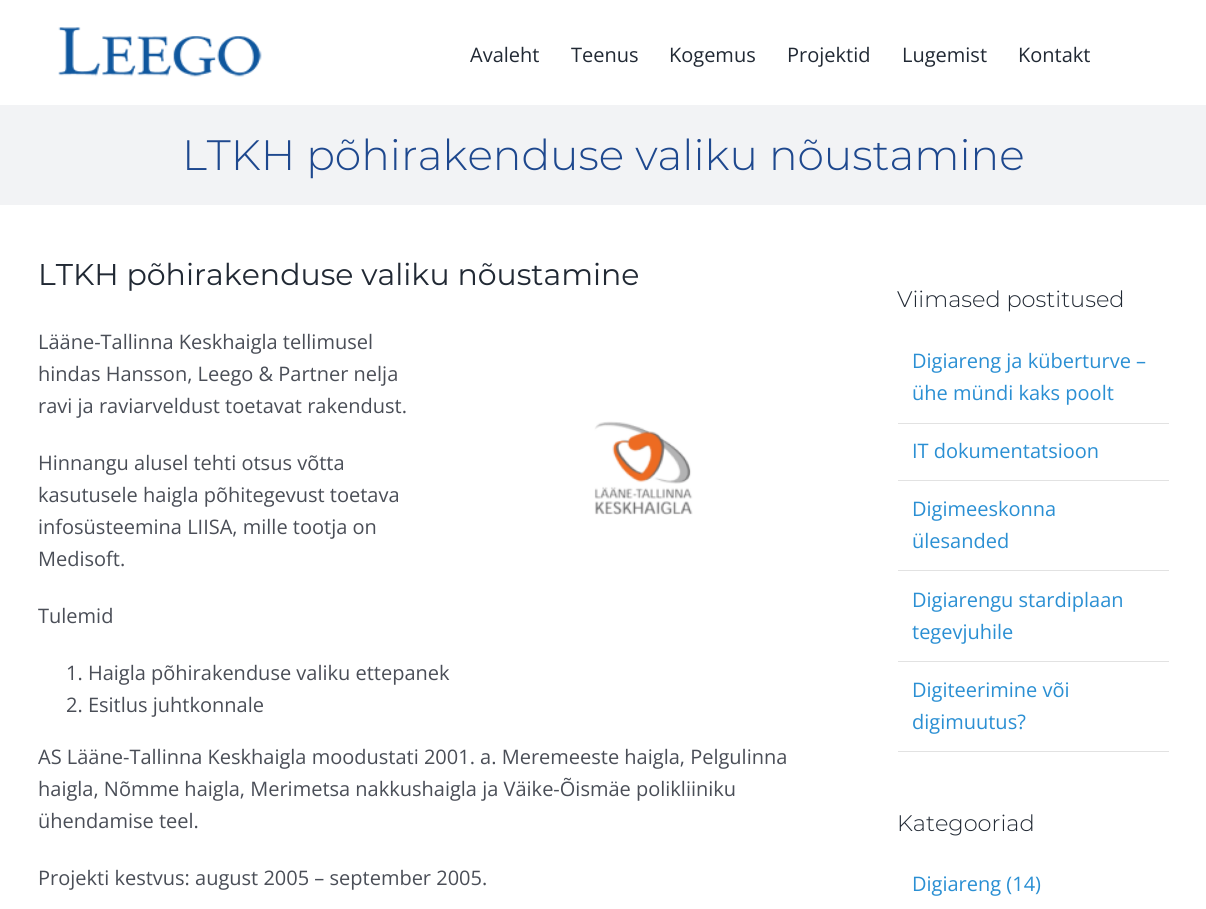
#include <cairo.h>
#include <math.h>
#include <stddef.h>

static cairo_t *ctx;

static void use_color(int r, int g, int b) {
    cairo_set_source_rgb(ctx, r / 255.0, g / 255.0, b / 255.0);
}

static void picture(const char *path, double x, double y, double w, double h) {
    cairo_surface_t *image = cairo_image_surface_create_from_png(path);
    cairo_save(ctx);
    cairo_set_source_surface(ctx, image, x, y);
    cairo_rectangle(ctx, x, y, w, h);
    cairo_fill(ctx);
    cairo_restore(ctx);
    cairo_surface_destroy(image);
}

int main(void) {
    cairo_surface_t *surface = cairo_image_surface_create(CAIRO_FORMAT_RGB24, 1206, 909);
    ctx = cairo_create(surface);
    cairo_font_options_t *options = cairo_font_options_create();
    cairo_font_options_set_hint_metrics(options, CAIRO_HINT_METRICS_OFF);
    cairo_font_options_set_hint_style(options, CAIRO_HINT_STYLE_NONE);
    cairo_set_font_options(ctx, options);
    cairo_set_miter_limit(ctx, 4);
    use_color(255, 255, 255);
    cairo_paint(ctx);
    picture("img1.png", 58, 27, 204, 50);
    cairo_select_font_face(ctx, "Open Sans", CAIRO_FONT_SLANT_NORMAL, CAIRO_FONT_WEIGHT_NORMAL);
    cairo_set_font_size(ctx, 20);
    use_color(33, 41, 52);
    cairo_move_to(ctx, 470, 62);
    cairo_show_text(ctx, "Avaleht");
    cairo_move_to(ctx, 571, 62);
    cairo_show_text(ctx, "Teenus");
    cairo_move_to(ctx, 669, 62);
    cairo_show_text(ctx, "Kogemus");
    cairo_move_to(ctx, 787, 62);
    cairo_show_text(ctx, "Projektid");
    cairo_move_to(ctx, 902, 62);
    cairo_show_text(ctx, "Lugemist");
    cairo_move_to(ctx, 1018, 62);
    cairo_show_text(ctx, "Kontakt");
    use_color(242, 243, 245);
    cairo_rectangle(ctx, 0, 105, 1206, 100);
    cairo_fill(ctx);
    cairo_select_font_face(ctx, "Montserrat Light", CAIRO_FONT_SLANT_NORMAL, CAIRO_FONT_WEIGHT_NORMAL);
    cairo_set_font_size(ctx, 42.5);
    use_color(30, 72, 142);
    cairo_move_to(ctx, 182, 170);
    cairo_show_text(ctx, "LTKH põhirakenduse valiku nõustamine");
    cairo_select_font_face(ctx, "Montserrat", CAIRO_FONT_SLANT_NORMAL, CAIRO_FONT_WEIGHT_NORMAL);
    cairo_set_font_size(ctx, 30);
    use_color(33, 41, 52);
    cairo_move_to(ctx, 38, 285);
    cairo_show_text(ctx, "LTKH põhirakenduse valiku nõustamine");
    cairo_select_font_face(ctx, "Open Sans", CAIRO_FONT_SLANT_NORMAL, CAIRO_FONT_WEIGHT_NORMAL);
    cairo_set_font_size(ctx, 20);
    use_color(74, 78, 87);
    cairo_move_to(ctx, 38, 349);
    cairo_show_text(ctx, "Lääne-Tallinna Keskhaigla tellimusel");
    cairo_move_to(ctx, 38, 381);
    cairo_show_text(ctx, "hindas Hansson, Leego & Partner nelja");
    cairo_move_to(ctx, 38, 413);
    cairo_show_text(ctx, "ravi ja raviarveldust toetavat rakendust.");
    picture("img2.png", 594, 421, 99, 94);
    cairo_move_to(ctx, 38, 470);
    cairo_show_text(ctx, "Hinnangu alusel tehti otsus võtta");
    cairo_move_to(ctx, 38, 502);
    cairo_show_text(ctx, "kasutusele haigla põhitegevust toetava");
    cairo_move_to(ctx, 38, 534);
    cairo_show_text(ctx, "infosüsteemina LIISA, mille tootja on");
    cairo_move_to(ctx, 38, 566);
    cairo_show_text(ctx, "Medisoft.");
    cairo_move_to(ctx, 38, 623);
    cairo_show_text(ctx, "Tulemid");
    cairo_move_to(ctx, 66, 680);
    cairo_show_text(ctx, "1. Haigla põhirakenduse valiku ettepanek");
    cairo_move_to(ctx, 66, 712);
    cairo_show_text(ctx, "2. Esitlus juhtkonnale");
    cairo_move_to(ctx, 38, 764);
    cairo_show_text(ctx, "AS Lääne-Tallinna Keskhaigla moodustati 2001. a. Meremeeste haigla, Pelgulinna");
    cairo_move_to(ctx, 38, 796);
    cairo_show_text(ctx, "haigla, Nõmme haigla, Merimetsa nakkushaigla ja Väike-Õismäe polikliiniku");
    cairo_move_to(ctx, 38, 828);
    cairo_show_text(ctx, "ühendamise teel.");
    cairo_move_to(ctx, 38, 885);
    cairo_show_text(ctx, "Projekti kestvus: august 2005 – september 2005.");
    cairo_select_font_face(ctx, "Montserrat Light", CAIRO_FONT_SLANT_NORMAL, CAIRO_FONT_WEIGHT_NORMAL);
    cairo_set_font_size(ctx, 22.5);
    use_color(33, 41, 52);
    cairo_move_to(ctx, 897, 307);
    cairo_show_text(ctx, "Viimased postitused");
    use_color(226, 226, 226);
    cairo_rectangle(ctx, 898, 423, 271, 1);
    cairo_fill(ctx);
    cairo_select_font_face(ctx, "Open Sans", CAIRO_FONT_SLANT_NORMAL, CAIRO_FONT_WEIGHT_NORMAL);
    cairo_set_font_size(ctx, 20);
    use_color(42, 143, 211);
    cairo_move_to(ctx, 912, 368);
    cairo_show_text(ctx, "Digiareng ja küberturve –");
    cairo_move_to(ctx, 912, 400);
    cairo_show_text(ctx, "ühe mündi kaks poolt");
    use_color(226, 226, 226);
    cairo_rectangle(ctx, 898, 480, 271, 1);
    cairo_fill(ctx);
    use_color(42, 143, 211);
    cairo_move_to(ctx, 912, 458);
    cairo_show_text(ctx, "IT dokumentatsioon");
    use_color(226, 226, 226);
    cairo_rectangle(ctx, 898, 570, 271, 1);
    cairo_fill(ctx);
    use_color(42, 143, 211);
    cairo_move_to(ctx, 912, 516);
    cairo_show_text(ctx, "Digimeeskonna");
    cairo_move_to(ctx, 912, 548);
    cairo_show_text(ctx, "ülesanded");
    use_color(226, 226, 226);
    cairo_rectangle(ctx, 898, 661, 271, 1);
    cairo_fill(ctx);
    use_color(42, 143, 211);
    cairo_move_to(ctx, 912, 607);
    cairo_show_text(ctx, "Digiarengu stardiplaan");
    cairo_move_to(ctx, 912, 639);
    cairo_show_text(ctx, "tegevjuhile");
    use_color(226, 226, 226);
    cairo_rectangle(ctx, 898, 751, 271, 1);
    cairo_fill(ctx);
    use_color(42, 143, 211);
    cairo_move_to(ctx, 912, 697);
    cairo_show_text(ctx, "Digiteerimine või");
    cairo_move_to(ctx, 912, 729);
    cairo_show_text(ctx, "digimuutus?");
    cairo_select_font_face(ctx, "Montserrat Light", CAIRO_FONT_SLANT_NORMAL, CAIRO_FONT_WEIGHT_NORMAL);
    cairo_set_font_size(ctx, 22.5);
    use_color(33, 41, 52);
    cairo_move_to(ctx, 897, 831);
    cairo_show_text(ctx, "Kategooriad");
    cairo_select_font_face(ctx, "Open Sans", CAIRO_FONT_SLANT_NORMAL, CAIRO_FONT_WEIGHT_NORMAL);
    cairo_set_font_size(ctx, 20);
    use_color(42, 143, 211);
    cairo_move_to(ctx, 912, 891);
    cairo_show_text(ctx, "Digiareng (14)");
    cairo_surface_write_to_png(surface, "result.png");
    cairo_font_options_destroy(options);
    cairo_destroy(ctx);
    cairo_surface_destroy(surface);
    return 0;
}
